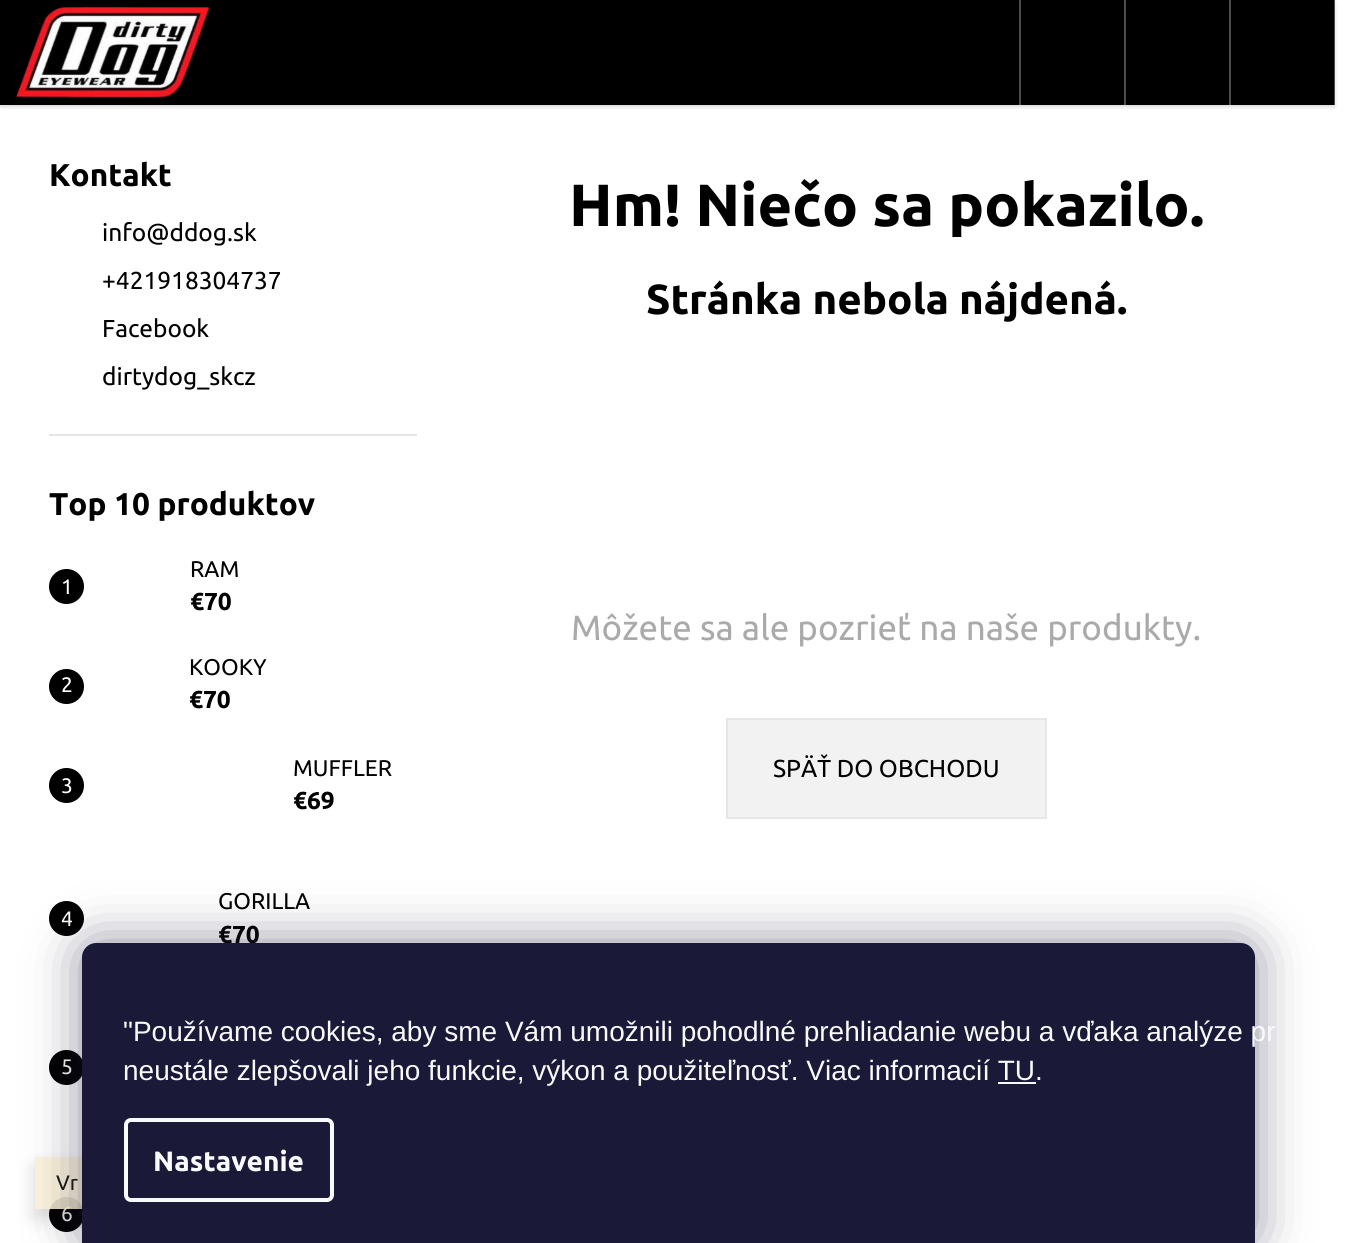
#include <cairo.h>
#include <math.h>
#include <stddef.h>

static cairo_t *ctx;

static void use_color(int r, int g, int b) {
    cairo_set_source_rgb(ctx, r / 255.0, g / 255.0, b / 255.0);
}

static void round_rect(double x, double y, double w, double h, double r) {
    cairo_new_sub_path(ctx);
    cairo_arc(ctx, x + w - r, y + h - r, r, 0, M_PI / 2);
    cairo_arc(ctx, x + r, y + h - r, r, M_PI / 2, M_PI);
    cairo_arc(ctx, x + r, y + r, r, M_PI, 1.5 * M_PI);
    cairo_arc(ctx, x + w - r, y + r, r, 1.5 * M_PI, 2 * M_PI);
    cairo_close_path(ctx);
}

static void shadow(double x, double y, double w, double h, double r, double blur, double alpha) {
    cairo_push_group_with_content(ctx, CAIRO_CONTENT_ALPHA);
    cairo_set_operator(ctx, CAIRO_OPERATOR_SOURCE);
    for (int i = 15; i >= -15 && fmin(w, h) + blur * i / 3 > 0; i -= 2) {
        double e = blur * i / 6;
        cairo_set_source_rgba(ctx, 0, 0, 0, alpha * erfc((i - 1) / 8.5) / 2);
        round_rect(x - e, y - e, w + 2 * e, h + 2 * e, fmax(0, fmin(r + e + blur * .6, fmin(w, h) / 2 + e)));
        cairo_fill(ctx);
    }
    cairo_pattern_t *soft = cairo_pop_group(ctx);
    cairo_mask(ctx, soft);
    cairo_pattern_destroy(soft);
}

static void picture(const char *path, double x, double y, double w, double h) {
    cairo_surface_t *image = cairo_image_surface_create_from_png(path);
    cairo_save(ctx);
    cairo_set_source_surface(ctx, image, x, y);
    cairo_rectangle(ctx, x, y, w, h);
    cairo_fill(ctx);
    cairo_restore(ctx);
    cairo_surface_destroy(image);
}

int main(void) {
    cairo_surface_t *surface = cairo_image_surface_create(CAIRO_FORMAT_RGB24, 1360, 1243);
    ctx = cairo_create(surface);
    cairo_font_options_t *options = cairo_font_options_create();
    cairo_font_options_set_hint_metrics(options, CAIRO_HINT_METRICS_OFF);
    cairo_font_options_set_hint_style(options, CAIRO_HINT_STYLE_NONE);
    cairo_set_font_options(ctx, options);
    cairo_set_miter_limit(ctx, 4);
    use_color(255, 255, 255);
    cairo_paint(ctx);
    use_color(0, 0, 0);
    shadow(0, 2, 1335, 105, 0, 2, 0.16);
    use_color(0, 0, 0);
    cairo_rectangle(ctx, 0, 0, 1335, 105);
    cairo_fill(ctx);
    picture("img1.png", 16, 6, 194, 92);
    cairo_set_source_rgba(ctx, 1, 1, 1, 0.3);
    cairo_rectangle(ctx, 1334, 0, 2, 105);
    cairo_fill(ctx);
    use_color(77, 77, 77);
    cairo_rectangle(ctx, 1019, 0, 2, 105);
    cairo_fill(ctx);
    cairo_rectangle(ctx, 1124, 0, 2, 105);
    cairo_fill(ctx);
    cairo_rectangle(ctx, 1229, 0, 2, 105);
    cairo_fill(ctx);
    cairo_select_font_face(ctx, "Ubuntu", CAIRO_FONT_SLANT_NORMAL, CAIRO_FONT_WEIGHT_BOLD);
    cairo_set_font_size(ctx, 31.5);
    use_color(0, 0, 0);
    cairo_move_to(ctx, 49, 186);
    cairo_show_text(ctx, "Kontakt");
    cairo_select_font_face(ctx, "Ubuntu", CAIRO_FONT_SLANT_NORMAL, CAIRO_FONT_WEIGHT_NORMAL);
    cairo_set_font_size(ctx, 24.5);
    cairo_move_to(ctx, 102, 241);
    cairo_show_text(ctx, "info@ddog.sk");
    cairo_move_to(ctx, 102, 289);
    cairo_show_text(ctx, "+421918304737");
    cairo_move_to(ctx, 102, 337);
    cairo_show_text(ctx, "Facebook");
    cairo_move_to(ctx, 102, 385);
    cairo_show_text(ctx, "dirtydog_skcz");
    use_color(230, 230, 230);
    cairo_rectangle(ctx, 49, 434, 368, 2);
    cairo_fill(ctx);
    cairo_select_font_face(ctx, "Ubuntu", CAIRO_FONT_SLANT_NORMAL, CAIRO_FONT_WEIGHT_BOLD);
    cairo_set_font_size(ctx, 31.5);
    use_color(0, 0, 0);
    cairo_move_to(ctx, 49, 515);
    cairo_show_text(ctx, "Top 10 produktov");
    cairo_new_path(ctx);
    cairo_arc(ctx, 66.5, 586.5, 17.5, 0, 2 * M_PI);
    cairo_fill(ctx);
    cairo_select_font_face(ctx, "Ubuntu", CAIRO_FONT_SLANT_NORMAL, CAIRO_FONT_WEIGHT_NORMAL);
    cairo_set_font_size(ctx, 21);
    use_color(255, 255, 255);
    cairo_move_to(ctx, 61, 594);
    cairo_show_text(ctx, "1");
    cairo_set_font_size(ctx, 22.75);
    use_color(0, 0, 0);
    cairo_move_to(ctx, 190, 577);
    cairo_show_text(ctx, "RAM");
    cairo_select_font_face(ctx, "Ubuntu", CAIRO_FONT_SLANT_NORMAL, CAIRO_FONT_WEIGHT_BOLD);
    cairo_set_font_size(ctx, 24.5);
    cairo_move_to(ctx, 190, 610);
    cairo_show_text(ctx, "€70");
    cairo_new_path(ctx);
    cairo_arc(ctx, 66.5, 686.5, 17.5, 0, 2 * M_PI);
    cairo_fill(ctx);
    cairo_select_font_face(ctx, "Ubuntu", CAIRO_FONT_SLANT_NORMAL, CAIRO_FONT_WEIGHT_NORMAL);
    cairo_set_font_size(ctx, 21);
    use_color(255, 255, 255);
    cairo_move_to(ctx, 61, 692);
    cairo_show_text(ctx, "2");
    cairo_set_font_size(ctx, 22.75);
    use_color(0, 0, 0);
    cairo_move_to(ctx, 189, 675);
    cairo_show_text(ctx, "KOOKY");
    cairo_select_font_face(ctx, "Ubuntu", CAIRO_FONT_SLANT_NORMAL, CAIRO_FONT_WEIGHT_BOLD);
    cairo_set_font_size(ctx, 24.5);
    cairo_move_to(ctx, 189, 708);
    cairo_show_text(ctx, "€70");
    cairo_new_path(ctx);
    cairo_arc(ctx, 66.5, 785.5, 17.5, 0, 2 * M_PI);
    cairo_fill(ctx);
    cairo_select_font_face(ctx, "Ubuntu", CAIRO_FONT_SLANT_NORMAL, CAIRO_FONT_WEIGHT_NORMAL);
    cairo_set_font_size(ctx, 21);
    use_color(255, 255, 255);
    cairo_move_to(ctx, 61, 793);
    cairo_show_text(ctx, "3");
    cairo_set_font_size(ctx, 22.75);
    use_color(0, 0, 0);
    cairo_move_to(ctx, 293, 776);
    cairo_show_text(ctx, "MUFFLER");
    cairo_select_font_face(ctx, "Ubuntu", CAIRO_FONT_SLANT_NORMAL, CAIRO_FONT_WEIGHT_BOLD);
    cairo_set_font_size(ctx, 24.5);
    cairo_move_to(ctx, 293, 809);
    cairo_show_text(ctx, "€69");
    cairo_new_path(ctx);
    cairo_arc(ctx, 66.5, 918.5, 17.5, 0, 2 * M_PI);
    cairo_fill(ctx);
    cairo_select_font_face(ctx, "Ubuntu", CAIRO_FONT_SLANT_NORMAL, CAIRO_FONT_WEIGHT_NORMAL);
    cairo_set_font_size(ctx, 21);
    use_color(255, 255, 255);
    cairo_move_to(ctx, 61, 926);
    cairo_show_text(ctx, "4");
    cairo_set_font_size(ctx, 22.75);
    use_color(0, 0, 0);
    cairo_move_to(ctx, 218, 909);
    cairo_show_text(ctx, "GORILLA");
    cairo_select_font_face(ctx, "Ubuntu", CAIRO_FONT_SLANT_NORMAL, CAIRO_FONT_WEIGHT_BOLD);
    cairo_set_font_size(ctx, 24.5);
    cairo_move_to(ctx, 218, 943);
    cairo_show_text(ctx, "€70");
    cairo_new_path(ctx);
    cairo_arc(ctx, 66.5, 1067.5, 17.5, 0, 2 * M_PI);
    cairo_fill(ctx);
    cairo_select_font_face(ctx, "Ubuntu", CAIRO_FONT_SLANT_NORMAL, CAIRO_FONT_WEIGHT_NORMAL);
    cairo_set_font_size(ctx, 21);
    use_color(255, 255, 255);
    cairo_move_to(ctx, 61, 1074);
    cairo_show_text(ctx, "5");
    use_color(0, 0, 0);
    cairo_new_path(ctx);
    cairo_arc(ctx, 66.5, 1214.5, 17.5, 0, 2 * M_PI);
    cairo_fill(ctx);
    use_color(255, 255, 255);
    cairo_move_to(ctx, 61, 1221);
    cairo_show_text(ctx, "6");
    cairo_select_font_face(ctx, "Ubuntu", CAIRO_FONT_SLANT_NORMAL, CAIRO_FONT_WEIGHT_BOLD);
    cairo_set_font_size(ctx, 59.5);
    use_color(0, 0, 0);
    cairo_move_to(ctx, 569, 226);
    cairo_show_text(ctx, "Hm! Niečo sa pokazilo.");
    cairo_set_font_size(ctx, 42);
    cairo_move_to(ctx, 646, 314);
    cairo_show_text(ctx, "Stránka nebola nájdená.");
    cairo_select_font_face(ctx, "Ubuntu", CAIRO_FONT_SLANT_NORMAL, CAIRO_FONT_WEIGHT_NORMAL);
    cairo_set_font_size(ctx, 35);
    use_color(170, 170, 170);
    cairo_move_to(ctx, 571, 640);
    cairo_show_text(ctx, "Môžete sa ale pozrieť na naše produkty.");
    use_color(242, 242, 242);
    cairo_rectangle(ctx, 727, 719, 319, 99);
    cairo_fill_preserve(ctx);
    use_color(230, 230, 230);
    cairo_stroke(ctx);
    cairo_set_font_size(ctx, 24.5);
    use_color(0, 0, 0);
    cairo_move_to(ctx, 773, 777);
    cairo_show_text(ctx, "SPÄŤ DO OBCHODU");
    cairo_save(ctx);
    cairo_set_fill_rule(ctx, CAIRO_FILL_RULE_EVEN_ODD);
    cairo_new_path(ctx);
    cairo_move_to(ctx, 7, 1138);
    cairo_line_to(ctx, 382, 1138);
    cairo_line_to(ctx, 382, 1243);
    cairo_line_to(ctx, 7, 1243);
    cairo_close_path(ctx);
    cairo_move_to(ctx, 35, 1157);
    cairo_line_to(ctx, 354, 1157);
    cairo_line_to(ctx, 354, 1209);
    cairo_line_to(ctx, 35, 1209);
    cairo_close_path(ctx);
    cairo_clip(ctx);
    use_color(0, 0, 0);
    shadow(35, 1166, 319, 52, 0, 9, 0.14);
    cairo_restore(ctx);
    cairo_set_source_rgba(ctx, 0.992, 0.953, 0.855, 0.9);
    cairo_rectangle(ctx, 35, 1157, 47, 52);
    cairo_fill(ctx);
    cairo_set_font_size(ctx, 21);
    use_color(25, 24, 22);
    cairo_move_to(ctx, 56, 1190);
    cairo_show_text(ctx, "Vr");
    use_color(27, 25, 57);
    shadow(82, 943, 1173, 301, 14, 26, 0.5);
    use_color(26, 25, 55);
    cairo_new_path(ctx);
    cairo_move_to(ctx, 96, 943);
    cairo_line_to(ctx, 1241, 943);
    cairo_curve_to(ctx, 1248.5, 943, 1255, 949.5, 1255, 957);
    cairo_line_to(ctx, 1255, 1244);
    cairo_line_to(ctx, 82, 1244);
    cairo_line_to(ctx, 82, 957);
    cairo_curve_to(ctx, 82, 949.5, 88.5, 943, 96, 943);
    cairo_close_path(ctx);
    cairo_fill(ctx);
    cairo_select_font_face(ctx, "Liberation Sans", CAIRO_FONT_SLANT_NORMAL, CAIRO_FONT_WEIGHT_NORMAL);
    cairo_set_font_size(ctx, 28);
    use_color(248, 250, 251);
    cairo_move_to(ctx, 123, 1041);
    cairo_show_text(ctx, "\"Používame cookies, aby sme Vám umožnili pohodlné prehliadanie webu a vďaka analýze pr");
    cairo_move_to(ctx, 123, 1080);
    cairo_show_text(ctx, "neustále zlepšovali jeho funkcie, výkon a použiteľnosť. Viac informacií TU.");
    cairo_rectangle(ctx, 998, 1082, 38, 2);
    cairo_fill(ctx);
    round_rect(126, 1120, 206, 80, 5);
    cairo_set_line_width(ctx, 4);
    cairo_stroke(ctx);
    cairo_select_font_face(ctx, "Ubuntu", CAIRO_FONT_SLANT_NORMAL, CAIRO_FONT_WEIGHT_BOLD);
    cairo_move_to(ctx, 153, 1171);
    cairo_show_text(ctx, "Nastavenie");
    cairo_surface_write_to_png(surface, "result.png");
    cairo_font_options_destroy(options);
    cairo_destroy(ctx);
    cairo_surface_destroy(surface);
    return 0;
}
